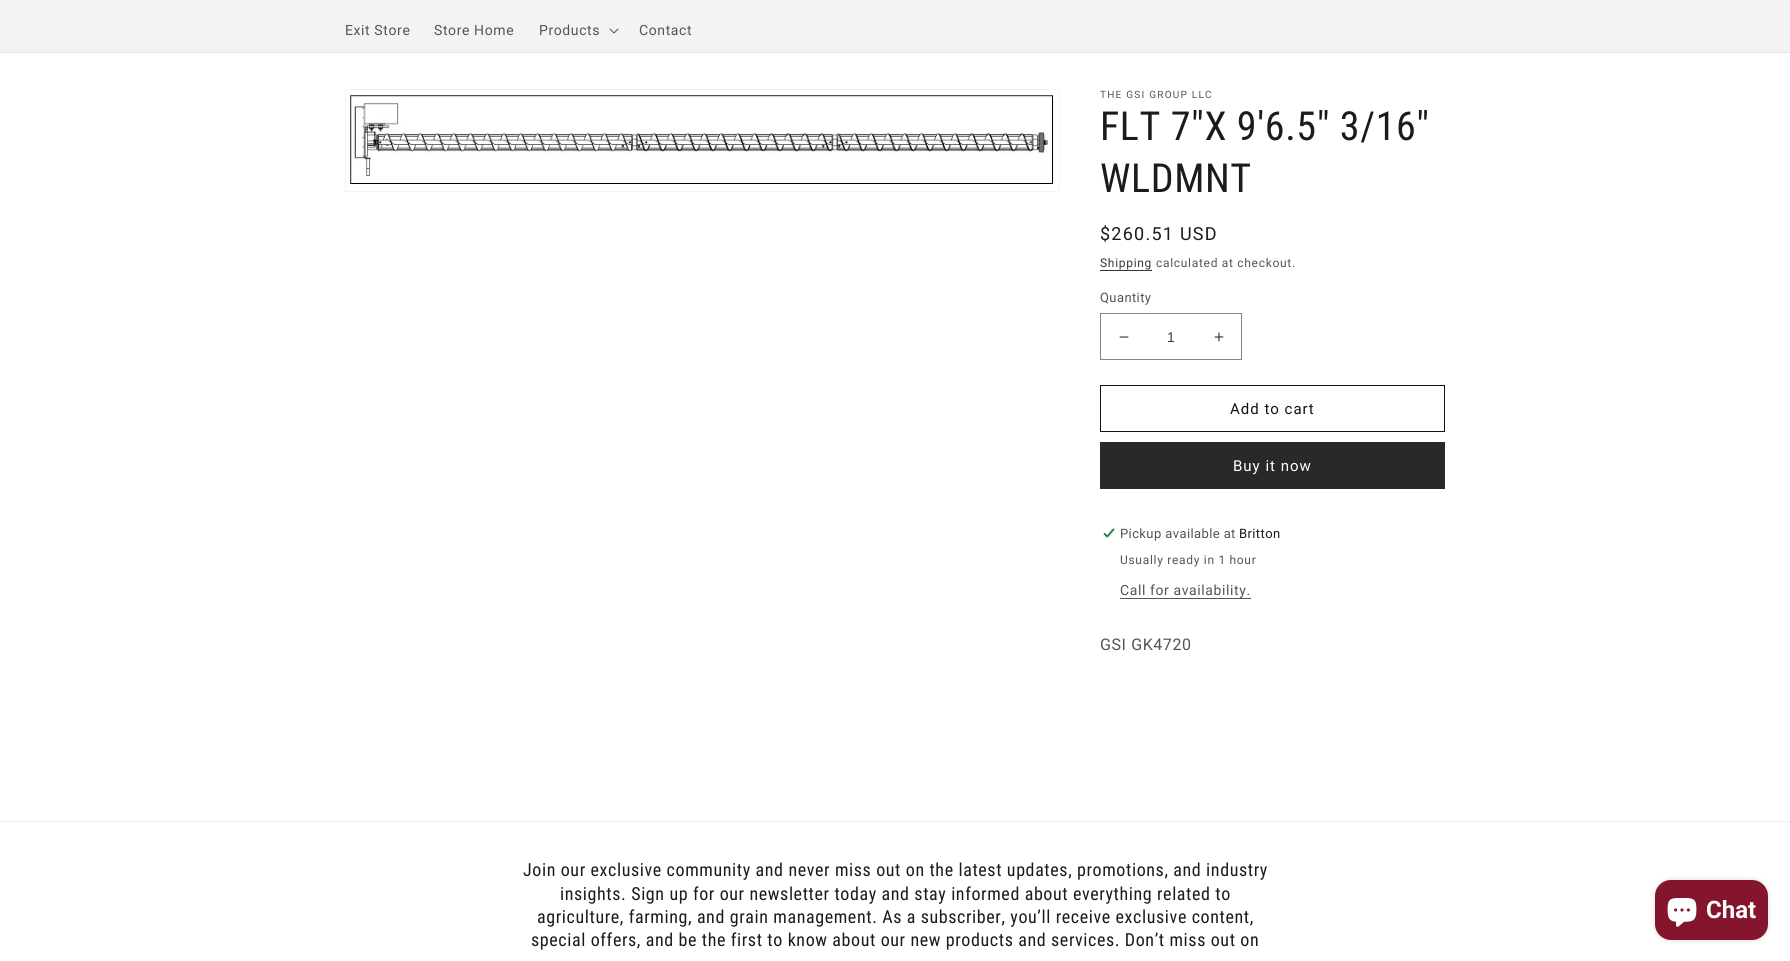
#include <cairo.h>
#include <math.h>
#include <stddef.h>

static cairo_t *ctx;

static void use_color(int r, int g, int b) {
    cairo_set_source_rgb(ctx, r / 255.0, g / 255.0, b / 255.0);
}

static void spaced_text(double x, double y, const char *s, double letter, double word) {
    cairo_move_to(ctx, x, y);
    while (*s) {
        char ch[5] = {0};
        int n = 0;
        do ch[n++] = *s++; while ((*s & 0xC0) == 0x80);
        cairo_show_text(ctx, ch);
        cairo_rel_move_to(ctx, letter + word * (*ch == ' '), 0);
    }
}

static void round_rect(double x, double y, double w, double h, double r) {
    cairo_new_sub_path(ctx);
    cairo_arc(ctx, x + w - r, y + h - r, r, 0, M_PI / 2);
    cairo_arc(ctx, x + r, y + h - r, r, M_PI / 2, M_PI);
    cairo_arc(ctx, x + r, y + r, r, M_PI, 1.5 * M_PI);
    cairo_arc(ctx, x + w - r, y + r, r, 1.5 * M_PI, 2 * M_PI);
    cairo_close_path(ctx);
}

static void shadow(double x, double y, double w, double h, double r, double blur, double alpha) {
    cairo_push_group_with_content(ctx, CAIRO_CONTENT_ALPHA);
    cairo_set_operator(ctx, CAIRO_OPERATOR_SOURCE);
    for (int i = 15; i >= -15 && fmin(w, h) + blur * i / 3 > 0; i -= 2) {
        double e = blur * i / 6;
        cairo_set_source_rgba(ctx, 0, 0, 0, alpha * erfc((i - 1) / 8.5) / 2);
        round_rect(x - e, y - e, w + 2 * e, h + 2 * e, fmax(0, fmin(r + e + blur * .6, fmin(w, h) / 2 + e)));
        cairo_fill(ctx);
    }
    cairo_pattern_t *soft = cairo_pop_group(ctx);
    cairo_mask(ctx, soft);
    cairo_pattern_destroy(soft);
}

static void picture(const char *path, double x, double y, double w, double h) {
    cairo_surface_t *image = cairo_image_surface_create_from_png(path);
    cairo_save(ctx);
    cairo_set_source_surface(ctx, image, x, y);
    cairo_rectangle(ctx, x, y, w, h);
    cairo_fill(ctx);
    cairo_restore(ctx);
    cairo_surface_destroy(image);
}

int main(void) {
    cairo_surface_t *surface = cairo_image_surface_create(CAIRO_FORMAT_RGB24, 1790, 961);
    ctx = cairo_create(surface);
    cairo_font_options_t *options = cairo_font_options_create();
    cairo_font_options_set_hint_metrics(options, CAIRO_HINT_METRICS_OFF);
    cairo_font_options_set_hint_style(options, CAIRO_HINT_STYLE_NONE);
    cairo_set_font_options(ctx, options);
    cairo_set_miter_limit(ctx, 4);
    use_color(255, 255, 255);
    cairo_paint(ctx);
    use_color(243, 243, 243);
    cairo_rectangle(ctx, 0, 0, 1790, 52);
    cairo_fill(ctx);
    use_color(226, 226, 226);
    cairo_rectangle(ctx, 0, 52, 1790, 1);
    cairo_fill(ctx);
    cairo_select_font_face(ctx, "Roboto", CAIRO_FONT_SLANT_NORMAL, CAIRO_FONT_WEIGHT_NORMAL);
    cairo_set_font_size(ctx, 14);
    use_color(84, 84, 84);
    spaced_text(345, 35, "Exit Store", 0.6, 0);
    spaced_text(434, 35, "Store Home", 0.6, 0);
    spaced_text(539, 35, "Products", 0.6, 0);
    picture("img1.png", 609, 28, 10, 6);
    spaced_text(639, 35, "Contact", 0.6, 0);
    cairo_rectangle(ctx, 345.5, 89.5, 714, 102);
    use_color(244, 244, 244);
    cairo_set_line_width(ctx, 1);
    cairo_stroke(ctx);
    picture("img2.png", 349, 93, 704, 93);
    cairo_set_font_size(ctx, 10);
    use_color(84, 84, 84);
    spaced_text(1100, 98, "THE GSI GROUP LLC", 1.25, 0);
    cairo_select_font_face(ctx, "Roboto Condensed", CAIRO_FONT_SLANT_NORMAL, CAIRO_FONT_WEIGHT_NORMAL);
    cairo_set_font_size(ctx, 40);
    use_color(27, 27, 27);
    spaced_text(1100, 140, "FLT 7\"X 9'6.5\" 3/16\"", 0.6, 0);
    spaced_text(1100, 192, "WLDMNT", 0.6, 0);
    cairo_select_font_face(ctx, "Roboto", CAIRO_FONT_SLANT_NORMAL, CAIRO_FONT_WEIGHT_NORMAL);
    cairo_set_font_size(ctx, 18);
    spaced_text(1100, 240, "$260.51 USD", 1.25, 0);
    cairo_set_font_size(ctx, 12);
    use_color(54, 54, 54);
    spaced_text(1100, 267, "Shipping", 0.7, 0);
    cairo_rectangle(ctx, 1100, 270, 52, 1);
    cairo_fill(ctx);
    use_color(84, 84, 84);
    spaced_text(1156, 267, "calculated at checkout.", 0.7, 0);
    cairo_set_font_size(ctx, 13);
    spaced_text(1100, 302, "Quantity", 0.4, 0);
    picture("img3.png", 1119, 336, 10, 2);
    picture("img4.png", 1214, 332, 10, 10);
    cairo_rectangle(ctx, 1100.5, 313.5, 141, 46);
    use_color(130, 130, 130);
    cairo_stroke(ctx);
    cairo_select_font_face(ctx, "Liberation Sans", CAIRO_FONT_SLANT_NORMAL, CAIRO_FONT_WEIGHT_NORMAL);
    cairo_set_font_size(ctx, 14);
    use_color(61, 61, 61);
    cairo_move_to(ctx, 1167, 342);
    cairo_show_text(ctx, "1");
    cairo_rectangle(ctx, 1100.5, 385.5, 344, 46);
    use_color(18, 18, 18);
    cairo_stroke(ctx);
    cairo_select_font_face(ctx, "Roboto", CAIRO_FONT_SLANT_NORMAL, CAIRO_FONT_WEIGHT_NORMAL);
    cairo_set_font_size(ctx, 15);
    spaced_text(1230, 414, "Add to cart", 1, 0);
    use_color(41, 41, 41);
    cairo_rectangle(ctx, 1100, 442, 345, 47);
    cairo_fill(ctx);
    use_color(255, 255, 255);
    spaced_text(1233, 471, "Buy it now", 1, 0);
    picture("img5.png", 1103, 528, 12, 10);
    cairo_set_font_size(ctx, 13);
    use_color(84, 84, 84);
    spaced_text(1120, 538, "Pickup available at", 0.4, 0);
    use_color(27, 27, 27);
    spaced_text(1239, 538, "Britton", 0.4, 0);
    cairo_set_font_size(ctx, 12);
    use_color(84, 84, 84);
    spaced_text(1120, 564, "Usually ready in 1 hour", 0.7, 0);
    cairo_set_font_size(ctx, 14);
    spaced_text(1120, 595, "Call for availability.", 0.6, 0);
    cairo_rectangle(ctx, 1120, 598, 131, 1);
    cairo_fill(ctx);
    cairo_set_font_size(ctx, 16);
    spaced_text(1100, 650, "GSI GK4720", 0.6, 0);
    use_color(237, 237, 237);
    cairo_rectangle(ctx, 0, 821, 1790, 1);
    cairo_fill(ctx);
    cairo_select_font_face(ctx, "Roboto Condensed", CAIRO_FONT_SLANT_NORMAL, CAIRO_FONT_WEIGHT_NORMAL);
    cairo_set_font_size(ctx, 18);
    use_color(27, 27, 27);
    spaced_text(523, 876, "Join our exclusive community and never miss out on the latest updates, promotions, and industry", 0.6, 0);
    spaced_text(560, 900, "insights. Sign up for our newsletter today and stay informed about everything related to", 0.6, 0);
    spaced_text(537, 923, "agriculture, farming, and grain management. As a subscriber, you’ll receive exclusive content,", 0.6, 0);
    spaced_text(531, 946, "special offers, and be the first to know about our new products and services. Don’t miss out on", 0.6, 0);
    use_color(0, 0, 0);
    shadow(1655, 880, 113, 60, 16, 2.5, 0.15);
    use_color(133, 21, 44);
    round_rect(1655, 880, 113, 60, 16);
    cairo_fill(ctx);
    picture("img6.png", 1667, 898, 30, 29);
    cairo_select_font_face(ctx, "Roboto", CAIRO_FONT_SLANT_NORMAL, CAIRO_FONT_WEIGHT_BOLD);
    cairo_set_font_size(ctx, 24);
    use_color(255, 255, 255);
    cairo_move_to(ctx, 1706, 918);
    cairo_show_text(ctx, "Chat");
    cairo_surface_write_to_png(surface, "result.png");
    cairo_font_options_destroy(options);
    cairo_destroy(ctx);
    cairo_surface_destroy(surface);
    return 0;
}
